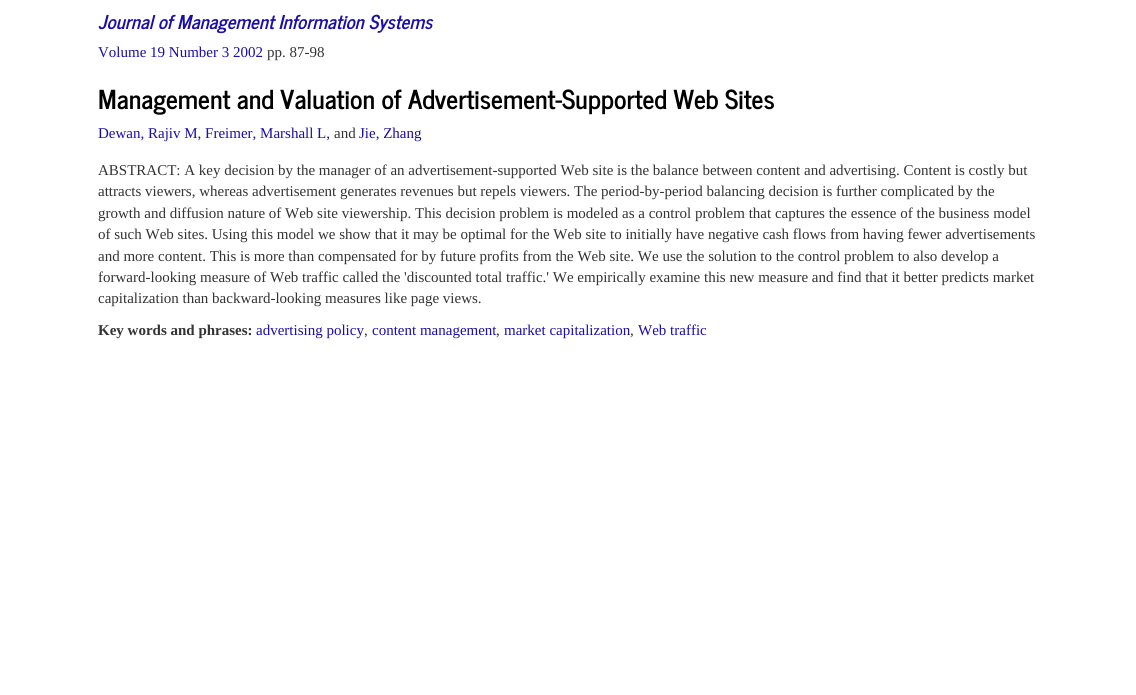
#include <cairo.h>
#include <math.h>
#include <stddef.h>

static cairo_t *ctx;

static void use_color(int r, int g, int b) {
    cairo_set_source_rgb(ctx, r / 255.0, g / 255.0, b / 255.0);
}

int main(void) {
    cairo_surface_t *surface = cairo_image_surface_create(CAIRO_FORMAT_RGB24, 1136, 695);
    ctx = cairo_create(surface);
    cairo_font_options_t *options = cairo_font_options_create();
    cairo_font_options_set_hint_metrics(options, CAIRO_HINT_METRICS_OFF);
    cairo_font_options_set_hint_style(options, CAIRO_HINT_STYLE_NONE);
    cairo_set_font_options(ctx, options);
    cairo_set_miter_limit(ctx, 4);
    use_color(255, 255, 255);
    cairo_paint(ctx);
    cairo_select_font_face(ctx, "News Cycle", CAIRO_FONT_SLANT_ITALIC, CAIRO_FONT_WEIGHT_BOLD);
    cairo_set_font_size(ctx, 19);
    use_color(26, 13, 171);
    cairo_move_to(ctx, 98, 29);
    cairo_show_text(ctx, "Journal of Management Information Systems");
    cairo_select_font_face(ctx, "Liberation Serif", CAIRO_FONT_SLANT_NORMAL, CAIRO_FONT_WEIGHT_NORMAL);
    cairo_set_font_size(ctx, 15);
    cairo_move_to(ctx, 98, 57);
    cairo_show_text(ctx, "Volume 19 Number 3 2002");
    use_color(51, 51, 51);
    cairo_move_to(ctx, 267, 57);
    cairo_show_text(ctx, "pp. 87-98");
    cairo_select_font_face(ctx, "News Cycle", CAIRO_FONT_SLANT_NORMAL, CAIRO_FONT_WEIGHT_BOLD);
    cairo_set_font_size(ctx, 26);
    use_color(0, 0, 0);
    cairo_move_to(ctx, 98, 109);
    cairo_show_text(ctx, "Management and Valuation of Advertisement-Supported Web Sites");
    cairo_select_font_face(ctx, "Liberation Serif", CAIRO_FONT_SLANT_NORMAL, CAIRO_FONT_WEIGHT_NORMAL);
    cairo_set_font_size(ctx, 15);
    use_color(26, 13, 171);
    cairo_move_to(ctx, 98, 138);
    cairo_show_text(ctx, "Dewan, Rajiv M, Freimer, Marshall L,");
    use_color(51, 51, 51);
    cairo_move_to(ctx, 334, 138);
    cairo_show_text(ctx, "and");
    use_color(26, 13, 171);
    cairo_move_to(ctx, 359, 138);
    cairo_show_text(ctx, "Jie, Zhang");
    use_color(51, 51, 51);
    cairo_move_to(ctx, 98, 175);
    cairo_show_text(ctx, "ABSTRACT: A key decision by the manager of an advertisement-supported Web site is the balance between content and advertising. Content is costly but");
    cairo_move_to(ctx, 98, 196);
    cairo_show_text(ctx, "attracts viewers, whereas advertisement generates revenues but repels viewers. The period-by-period balancing decision is further complicated by the");
    cairo_move_to(ctx, 98, 218);
    cairo_show_text(ctx, "growth and diffusion nature of Web site viewership. This decision problem is modeled as a control problem that captures the essence of the business model");
    cairo_move_to(ctx, 98, 239);
    cairo_show_text(ctx, "of such Web sites. Using this model we show that it may be optimal for the Web site to initially have negative cash flows from having fewer advertisements");
    cairo_move_to(ctx, 98, 261);
    cairo_show_text(ctx, "and more content. This is more than compensated for by future profits from the Web site. We use the solution to the control problem to also develop a");
    cairo_move_to(ctx, 98, 282);
    cairo_show_text(ctx, "forward-looking measure of Web traffic called the 'discounted total traffic.' We empirically examine this new measure and find that it better predicts market");
    cairo_move_to(ctx, 98, 303);
    cairo_show_text(ctx, "capitalization than backward-looking measures like page views.");
    cairo_select_font_face(ctx, "Liberation Serif", CAIRO_FONT_SLANT_NORMAL, CAIRO_FONT_WEIGHT_BOLD);
    cairo_move_to(ctx, 98, 335);
    cairo_show_text(ctx, "Key words and phrases:");
    cairo_select_font_face(ctx, "Liberation Serif", CAIRO_FONT_SLANT_NORMAL, CAIRO_FONT_WEIGHT_NORMAL);
    use_color(26, 13, 171);
    cairo_move_to(ctx, 256, 335);
    cairo_show_text(ctx, "advertising policy");
    use_color(51, 51, 51);
    cairo_move_to(ctx, 364, 335);
    cairo_show_text(ctx, ",");
    use_color(26, 13, 171);
    cairo_move_to(ctx, 372, 335);
    cairo_show_text(ctx, "content management");
    use_color(51, 51, 51);
    cairo_move_to(ctx, 496, 335);
    cairo_show_text(ctx, ",");
    use_color(26, 13, 171);
    cairo_move_to(ctx, 504, 335);
    cairo_show_text(ctx, "market capitalization");
    use_color(51, 51, 51);
    cairo_move_to(ctx, 630, 335);
    cairo_show_text(ctx, ",");
    use_color(26, 13, 171);
    cairo_move_to(ctx, 638, 335);
    cairo_show_text(ctx, "Web traffic");
    cairo_surface_write_to_png(surface, "result.png");
    cairo_font_options_destroy(options);
    cairo_destroy(ctx);
    cairo_surface_destroy(surface);
    return 0;
}
